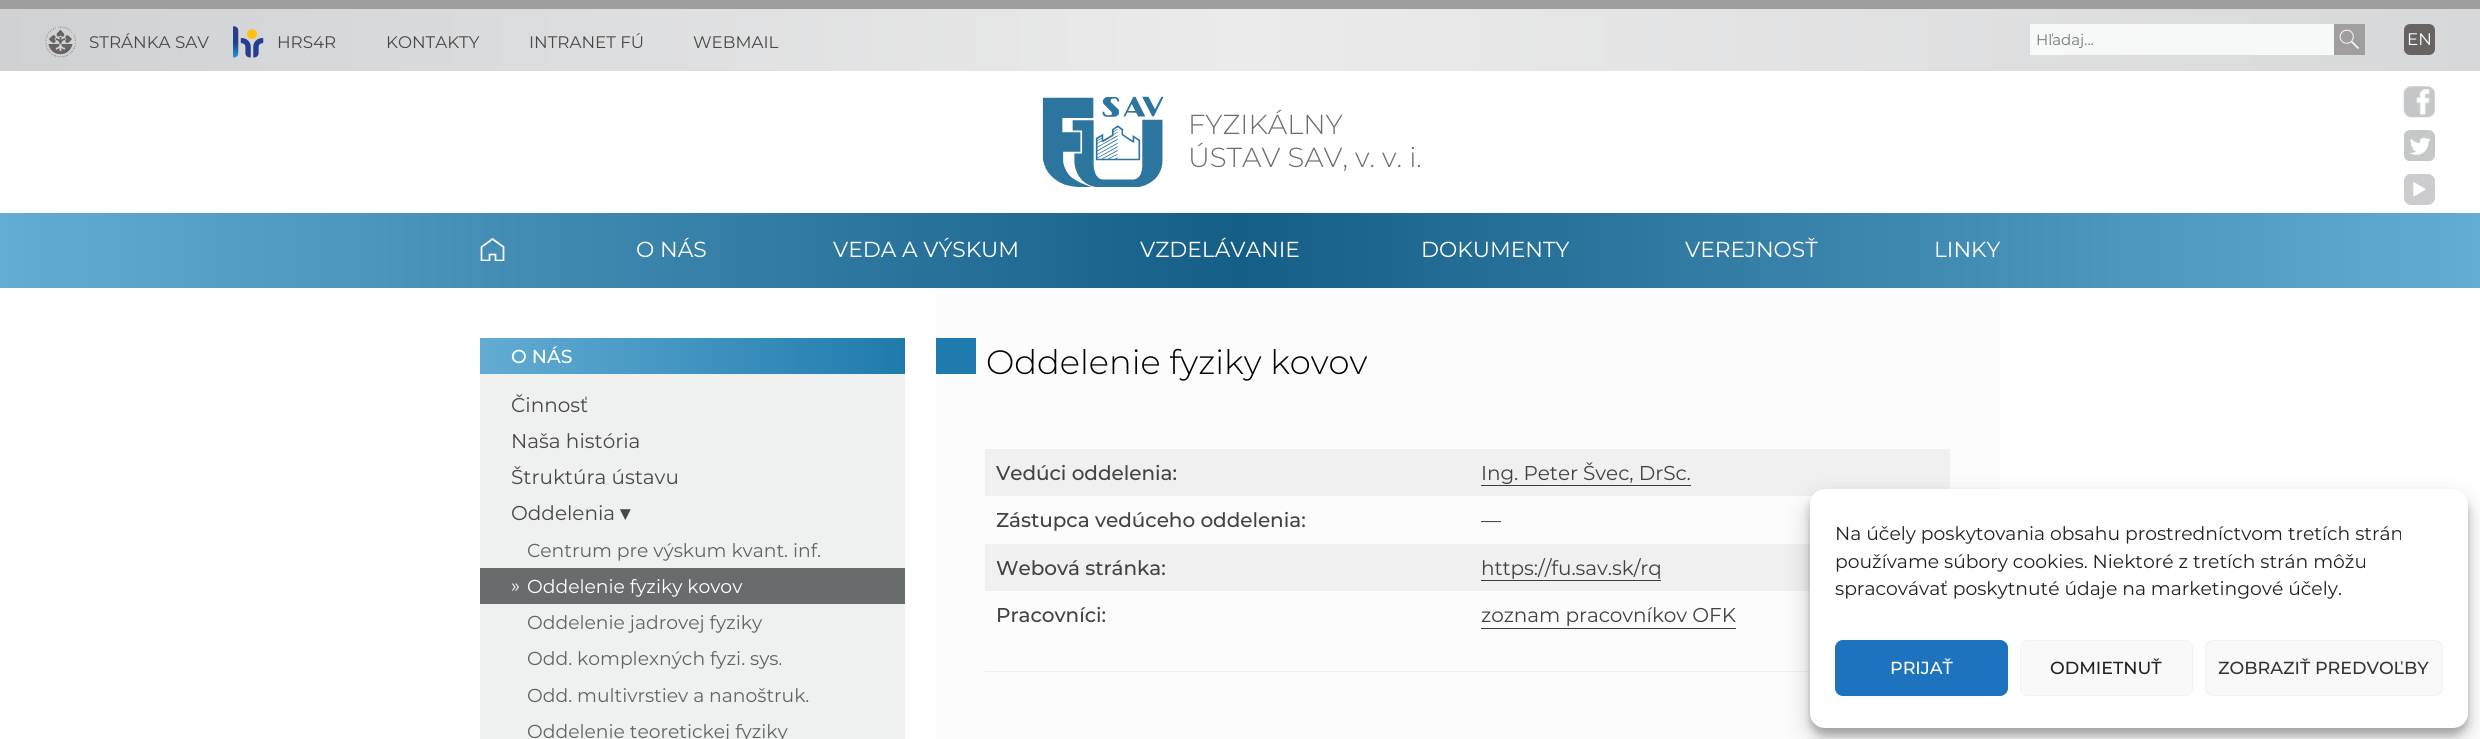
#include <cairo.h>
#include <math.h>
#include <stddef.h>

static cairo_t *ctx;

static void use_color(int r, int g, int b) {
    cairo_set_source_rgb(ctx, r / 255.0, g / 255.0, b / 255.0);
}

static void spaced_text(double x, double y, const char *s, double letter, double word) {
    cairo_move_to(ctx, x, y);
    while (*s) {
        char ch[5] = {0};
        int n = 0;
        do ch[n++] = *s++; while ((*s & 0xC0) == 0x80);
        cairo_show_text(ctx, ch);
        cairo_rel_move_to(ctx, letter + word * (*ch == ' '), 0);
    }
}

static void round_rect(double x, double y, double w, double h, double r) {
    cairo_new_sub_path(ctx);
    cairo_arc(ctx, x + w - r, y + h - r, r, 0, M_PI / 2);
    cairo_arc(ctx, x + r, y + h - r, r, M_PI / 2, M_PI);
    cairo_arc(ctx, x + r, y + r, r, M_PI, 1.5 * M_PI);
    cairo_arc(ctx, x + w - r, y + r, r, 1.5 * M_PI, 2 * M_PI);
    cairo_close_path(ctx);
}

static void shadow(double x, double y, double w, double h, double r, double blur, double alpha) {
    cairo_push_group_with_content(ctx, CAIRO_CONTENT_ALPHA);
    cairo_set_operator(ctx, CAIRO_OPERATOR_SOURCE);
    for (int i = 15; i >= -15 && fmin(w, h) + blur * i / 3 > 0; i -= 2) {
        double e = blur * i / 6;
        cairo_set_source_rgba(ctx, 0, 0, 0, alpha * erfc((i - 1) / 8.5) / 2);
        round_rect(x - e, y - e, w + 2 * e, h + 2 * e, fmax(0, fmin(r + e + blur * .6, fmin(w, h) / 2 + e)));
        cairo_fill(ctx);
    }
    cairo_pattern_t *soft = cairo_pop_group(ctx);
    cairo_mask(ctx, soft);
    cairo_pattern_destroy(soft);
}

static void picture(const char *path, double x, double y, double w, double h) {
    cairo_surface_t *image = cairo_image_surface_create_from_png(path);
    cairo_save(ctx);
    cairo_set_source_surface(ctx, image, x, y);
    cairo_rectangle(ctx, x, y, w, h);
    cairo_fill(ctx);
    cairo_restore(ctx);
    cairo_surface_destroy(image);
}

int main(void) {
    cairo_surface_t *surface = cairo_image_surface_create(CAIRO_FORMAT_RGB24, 2480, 739);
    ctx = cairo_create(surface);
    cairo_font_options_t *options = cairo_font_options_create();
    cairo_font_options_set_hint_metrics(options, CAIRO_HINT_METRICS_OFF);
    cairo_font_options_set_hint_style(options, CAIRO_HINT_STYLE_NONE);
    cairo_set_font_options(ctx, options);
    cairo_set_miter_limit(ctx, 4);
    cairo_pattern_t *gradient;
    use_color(255, 255, 255);
    cairo_paint(ctx);
    use_color(159, 158, 158);
    cairo_rectangle(ctx, 0, 0, 2480, 9);
    cairo_fill(ctx);
    gradient = cairo_pattern_create_linear(0, 40, 2480, 40);
    cairo_pattern_add_color_stop_rgba(gradient, 0, 0.812, 0.82, 0.824, 1);
    cairo_pattern_add_color_stop_rgba(gradient, 0.5, 0.922, 0.922, 0.925, 1);
    cairo_pattern_add_color_stop_rgba(gradient, 1, 0.843, 0.847, 0.851, 1);
    cairo_set_source(ctx, gradient);
    cairo_pattern_destroy(gradient);
    cairo_rectangle(ctx, 0, 9, 2480, 62);
    cairo_fill(ctx);
    picture("img1.png", 45, 26, 31, 32);
    cairo_select_font_face(ctx, "Montserrat", CAIRO_FONT_SLANT_NORMAL, CAIRO_FONT_WEIGHT_NORMAL);
    cairo_set_font_size(ctx, 16.75);
    use_color(73, 71, 72);
    cairo_move_to(ctx, 89, 48);
    cairo_show_text(ctx, "STRÁNKA SAV");
    picture("img2.png", 233, 26, 31, 32);
    cairo_move_to(ctx, 277, 48);
    cairo_show_text(ctx, "HRS4R");
    cairo_move_to(ctx, 386, 48);
    cairo_show_text(ctx, "KONTAKTY");
    cairo_move_to(ctx, 529, 48);
    cairo_show_text(ctx, "INTRANET FÚ");
    cairo_move_to(ctx, 693, 48);
    cairo_show_text(ctx, "WEBMAIL");
    use_color(247, 248, 248);
    cairo_rectangle(ctx, 2030, 24, 304, 31);
    cairo_fill(ctx);
    cairo_set_font_size(ctx, 15);
    use_color(117, 117, 117);
    cairo_move_to(ctx, 2036, 45);
    cairo_show_text(ctx, "Hľadaj...");
    use_color(160, 158, 158);
    cairo_rectangle(ctx, 2334, 24, 31, 31);
    cairo_fill(ctx);
    picture("img3.png", 2339, 29, 20, 20);
    use_color(103, 99, 99);
    round_rect(2404, 24, 31, 31, 6);
    cairo_fill(ctx);
    cairo_set_font_size(ctx, 16.75);
    use_color(255, 255, 255);
    cairo_move_to(ctx, 2407, 45);
    cairo_show_text(ctx, "EN");
    picture("img4.png", 1042, 96, 122, 92);
    cairo_select_font_face(ctx, "Montserrat Light", CAIRO_FONT_SLANT_NORMAL, CAIRO_FONT_WEIGHT_NORMAL);
    cairo_set_font_size(ctx, 27.5);
    use_color(106, 109, 111);
    cairo_move_to(ctx, 1188, 134);
    cairo_show_text(ctx, "FYZIKÁLNY");
    cairo_move_to(ctx, 1188, 167);
    cairo_show_text(ctx, "ÚSTAV SAV, v. v. i.");
    gradient = cairo_pattern_create_linear(0, 250, 2480, 250);
    cairo_pattern_add_color_stop_rgba(gradient, 0, 0.388, 0.675, 0.831, 1);
    cairo_pattern_add_color_stop_rgba(gradient, 0.5, 0.082, 0.369, 0.529, 1);
    cairo_pattern_add_color_stop_rgba(gradient, 1, 0.388, 0.675, 0.831, 1);
    cairo_set_source(ctx, gradient);
    cairo_pattern_destroy(gradient);
    cairo_rectangle(ctx, 0, 213, 2480, 75);
    cairo_fill(ctx);
    cairo_save(ctx);
    cairo_rectangle(ctx, 480, 238, 25, 23);
    cairo_clip(ctx);
    cairo_new_path(ctx);
    cairo_move_to(ctx, 492.5, 239);
    cairo_line_to(ctx, 481.5, 247);
    cairo_line_to(ctx, 481.5, 260.5);
    cairo_line_to(ctx, 489.5, 260.5);
    cairo_line_to(ctx, 489.5, 254.5);
    cairo_line_to(ctx, 495.5, 254.5);
    cairo_line_to(ctx, 495.5, 260.5);
    cairo_line_to(ctx, 503.5, 260.5);
    cairo_line_to(ctx, 503.5, 247);
    cairo_close_path(ctx);
    use_color(255, 255, 255);
    cairo_set_line_width(ctx, 1.7);
    cairo_stroke(ctx);
    cairo_restore(ctx);
    cairo_select_font_face(ctx, "Montserrat", CAIRO_FONT_SLANT_NORMAL, CAIRO_FONT_WEIGHT_NORMAL);
    cairo_set_font_size(ctx, 21.75);
    use_color(255, 255, 255);
    cairo_move_to(ctx, 636, 257);
    cairo_show_text(ctx, "O NÁS");
    cairo_move_to(ctx, 833, 257);
    cairo_show_text(ctx, "VEDA A VÝSKUM");
    cairo_move_to(ctx, 1140, 257);
    cairo_show_text(ctx, "VZDELÁVANIE");
    cairo_move_to(ctx, 1421, 257);
    cairo_show_text(ctx, "DOKUMENTY");
    cairo_move_to(ctx, 1685, 257);
    cairo_show_text(ctx, "VEREJNOSŤ");
    cairo_move_to(ctx, 1934, 257);
    cairo_show_text(ctx, "LINKY");
    picture("img5.png", 2403, 86, 32, 32);
    picture("img6.png", 2404, 130, 31, 31);
    picture("img7.png", 2404, 174, 31, 31);
    use_color(239, 240, 240);
    cairo_rectangle(ctx, 480, 374, 425, 365);
    cairo_fill(ctx);
    gradient = cairo_pattern_create_linear(480, 356, 905, 356);
    cairo_pattern_add_color_stop_rgba(gradient, 0, 0.388, 0.675, 0.831, 1);
    cairo_pattern_add_color_stop_rgba(gradient, 1, 0.122, 0.482, 0.678, 1);
    cairo_set_source(ctx, gradient);
    cairo_pattern_destroy(gradient);
    cairo_rectangle(ctx, 480, 338, 425, 36);
    cairo_fill(ctx);
    cairo_select_font_face(ctx, "Montserrat Medium", CAIRO_FONT_SLANT_NORMAL, CAIRO_FONT_WEIGHT_NORMAL);
    cairo_set_font_size(ctx, 18.75);
    use_color(255, 255, 255);
    cairo_move_to(ctx, 511, 363);
    cairo_show_text(ctx, "O NÁS");
    cairo_select_font_face(ctx, "Montserrat", CAIRO_FONT_SLANT_NORMAL, CAIRO_FONT_WEIGHT_NORMAL);
    cairo_set_font_size(ctx, 20);
    use_color(73, 71, 72);
    cairo_move_to(ctx, 511, 412);
    cairo_show_text(ctx, "Činnosť");
    cairo_move_to(ctx, 511, 448);
    cairo_show_text(ctx, "Naša história");
    cairo_move_to(ctx, 511, 484);
    cairo_show_text(ctx, "Štruktúra ústavu");
    cairo_move_to(ctx, 511, 520);
    cairo_show_text(ctx, "Oddelenia");
    cairo_select_font_face(ctx, "DejaVu Sans", CAIRO_FONT_SLANT_NORMAL, CAIRO_FONT_WEIGHT_BOLD);
    cairo_move_to(ctx, 620, 520);
    cairo_show_text(ctx, "▾");
    cairo_select_font_face(ctx, "Montserrat", CAIRO_FONT_SLANT_NORMAL, CAIRO_FONT_WEIGHT_NORMAL);
    cairo_set_font_size(ctx, 18.75);
    use_color(100, 99, 99);
    cairo_move_to(ctx, 527, 557);
    cairo_show_text(ctx, "Centrum pre výskum kvant. inf.");
    use_color(105, 108, 109);
    cairo_rectangle(ctx, 480, 568, 425, 36);
    cairo_fill(ctx);
    use_color(255, 255, 255);
    cairo_move_to(ctx, 511, 592);
    cairo_show_text(ctx, "»");
    cairo_move_to(ctx, 527, 593);
    cairo_show_text(ctx, "Oddelenie fyziky kovov");
    use_color(100, 99, 99);
    cairo_move_to(ctx, 527, 629);
    cairo_show_text(ctx, "Oddelenie jadrovej fyziky");
    cairo_move_to(ctx, 527, 665);
    cairo_show_text(ctx, "Odd. komplexných fyzi. sys.");
    cairo_move_to(ctx, 527, 702);
    cairo_show_text(ctx, "Odd. multivrstiev a nanoštruk.");
    cairo_move_to(ctx, 527, 738);
    cairo_show_text(ctx, "Oddelenie teoretickej fyziky");
    use_color(252, 252, 252);
    cairo_rectangle(ctx, 936, 288, 1064, 451);
    cairo_fill(ctx);
    use_color(31, 123, 173);
    cairo_rectangle(ctx, 936, 338, 40, 36);
    cairo_fill(ctx);
    cairo_select_font_face(ctx, "Montserrat Light", CAIRO_FONT_SLANT_NORMAL, CAIRO_FONT_WEIGHT_NORMAL);
    cairo_set_font_size(ctx, 33.75);
    use_color(0, 0, 0);
    cairo_move_to(ctx, 986, 374);
    cairo_show_text(ctx, "Oddelenie fyziky kovov");
    use_color(240, 240, 240);
    cairo_rectangle(ctx, 985, 671, 825, 1);
    cairo_fill(ctx);
    cairo_rectangle(ctx, 985, 449, 965, 47);
    cairo_fill(ctx);
    cairo_select_font_face(ctx, "Montserrat Medium", CAIRO_FONT_SLANT_NORMAL, CAIRO_FONT_WEIGHT_NORMAL);
    cairo_set_font_size(ctx, 20);
    use_color(67, 65, 66);
    spaced_text(996, 480, "Vedúci oddelenia:", -0.05, 0);
    cairo_select_font_face(ctx, "Montserrat", CAIRO_FONT_SLANT_NORMAL, CAIRO_FONT_WEIGHT_NORMAL);
    spaced_text(1481, 480, "Ing. Peter Švec, DrSc.", -0.05, 0);
    use_color(64, 60, 61);
    cairo_rectangle(ctx, 1481, 485, 210, 1);
    cairo_fill(ctx);
    cairo_select_font_face(ctx, "Montserrat Medium", CAIRO_FONT_SLANT_NORMAL, CAIRO_FONT_WEIGHT_NORMAL);
    use_color(67, 65, 66);
    spaced_text(996, 527, "Zástupca vedúceho oddelenia:", -0.05, 0);
    cairo_select_font_face(ctx, "Montserrat", CAIRO_FONT_SLANT_NORMAL, CAIRO_FONT_WEIGHT_NORMAL);
    spaced_text(1481, 527, "—", -0.05, 0);
    use_color(240, 240, 240);
    cairo_rectangle(ctx, 985, 544, 825, 47);
    cairo_fill(ctx);
    cairo_select_font_face(ctx, "Montserrat Medium", CAIRO_FONT_SLANT_NORMAL, CAIRO_FONT_WEIGHT_NORMAL);
    use_color(67, 65, 66);
    spaced_text(996, 575, "Webová stránka:", -0.05, 0);
    cairo_select_font_face(ctx, "Montserrat", CAIRO_FONT_SLANT_NORMAL, CAIRO_FONT_WEIGHT_NORMAL);
    spaced_text(1481, 575, "https://fu.sav.sk/rq", -0.05, 0);
    use_color(64, 60, 61);
    cairo_rectangle(ctx, 1481, 580, 180, 1);
    cairo_fill(ctx);
    cairo_select_font_face(ctx, "Montserrat Medium", CAIRO_FONT_SLANT_NORMAL, CAIRO_FONT_WEIGHT_NORMAL);
    use_color(67, 65, 66);
    spaced_text(996, 622, "Pracovníci:", -0.05, 0);
    cairo_select_font_face(ctx, "Montserrat", CAIRO_FONT_SLANT_NORMAL, CAIRO_FONT_WEIGHT_NORMAL);
    spaced_text(1481, 622, "zoznam pracovníkov OFK", -0.05, 0);
    use_color(64, 60, 61);
    cairo_rectangle(ctx, 1481, 628, 255, 1);
    cairo_fill(ctx);
    use_color(0, 0, 0);
    shadow(1810, 496, 658, 239, 15, 4, 0.23);
    shadow(1810, 501, 658, 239, 15, 12.5, 0.19);
    use_color(255, 255, 255);
    round_rect(1810, 489, 658, 239, 15);
    cairo_fill(ctx);
    cairo_set_font_size(ctx, 18.75);
    use_color(34, 34, 34);
    cairo_move_to(ctx, 1835, 540);
    cairo_show_text(ctx, "Na účely poskytovania obsahu prostredníctvom tretích strán");
    cairo_move_to(ctx, 1835, 568);
    cairo_show_text(ctx, "používame súbory cookies. Niektoré z tretích strán môžu");
    cairo_move_to(ctx, 1835, 595);
    cairo_show_text(ctx, "spracovávať poskytnuté údaje na marketingové účely.");
    use_color(30, 115, 190);
    round_rect(1835.5, 640.5, 172, 55, 7.5);
    cairo_fill_preserve(ctx);
    cairo_set_line_width(ctx, 1);
    cairo_stroke(ctx);
    cairo_select_font_face(ctx, "Montserrat Medium", CAIRO_FONT_SLANT_NORMAL, CAIRO_FONT_WEIGHT_NORMAL);
    cairo_set_font_size(ctx, 17.5);
    use_color(255, 255, 255);
    cairo_move_to(ctx, 1890, 674);
    cairo_show_text(ctx, "PRIJAŤ");
    use_color(249, 249, 249);
    round_rect(2020.5, 640.5, 172, 55, 7.5);
    cairo_fill_preserve(ctx);
    use_color(242, 242, 242);
    cairo_stroke(ctx);
    use_color(34, 34, 34);
    cairo_move_to(ctx, 2050, 674);
    cairo_show_text(ctx, "ODMIETNUŤ");
    use_color(249, 249, 249);
    round_rect(2205.5, 640.5, 237, 55, 7.5);
    cairo_fill_preserve(ctx);
    use_color(242, 242, 242);
    cairo_stroke(ctx);
    use_color(51, 51, 51);
    cairo_move_to(ctx, 2218, 674);
    cairo_show_text(ctx, "ZOBRAZIŤ PREDVOĽBY");
    cairo_surface_write_to_png(surface, "result.png");
    cairo_font_options_destroy(options);
    cairo_destroy(ctx);
    cairo_surface_destroy(surface);
    return 0;
}
